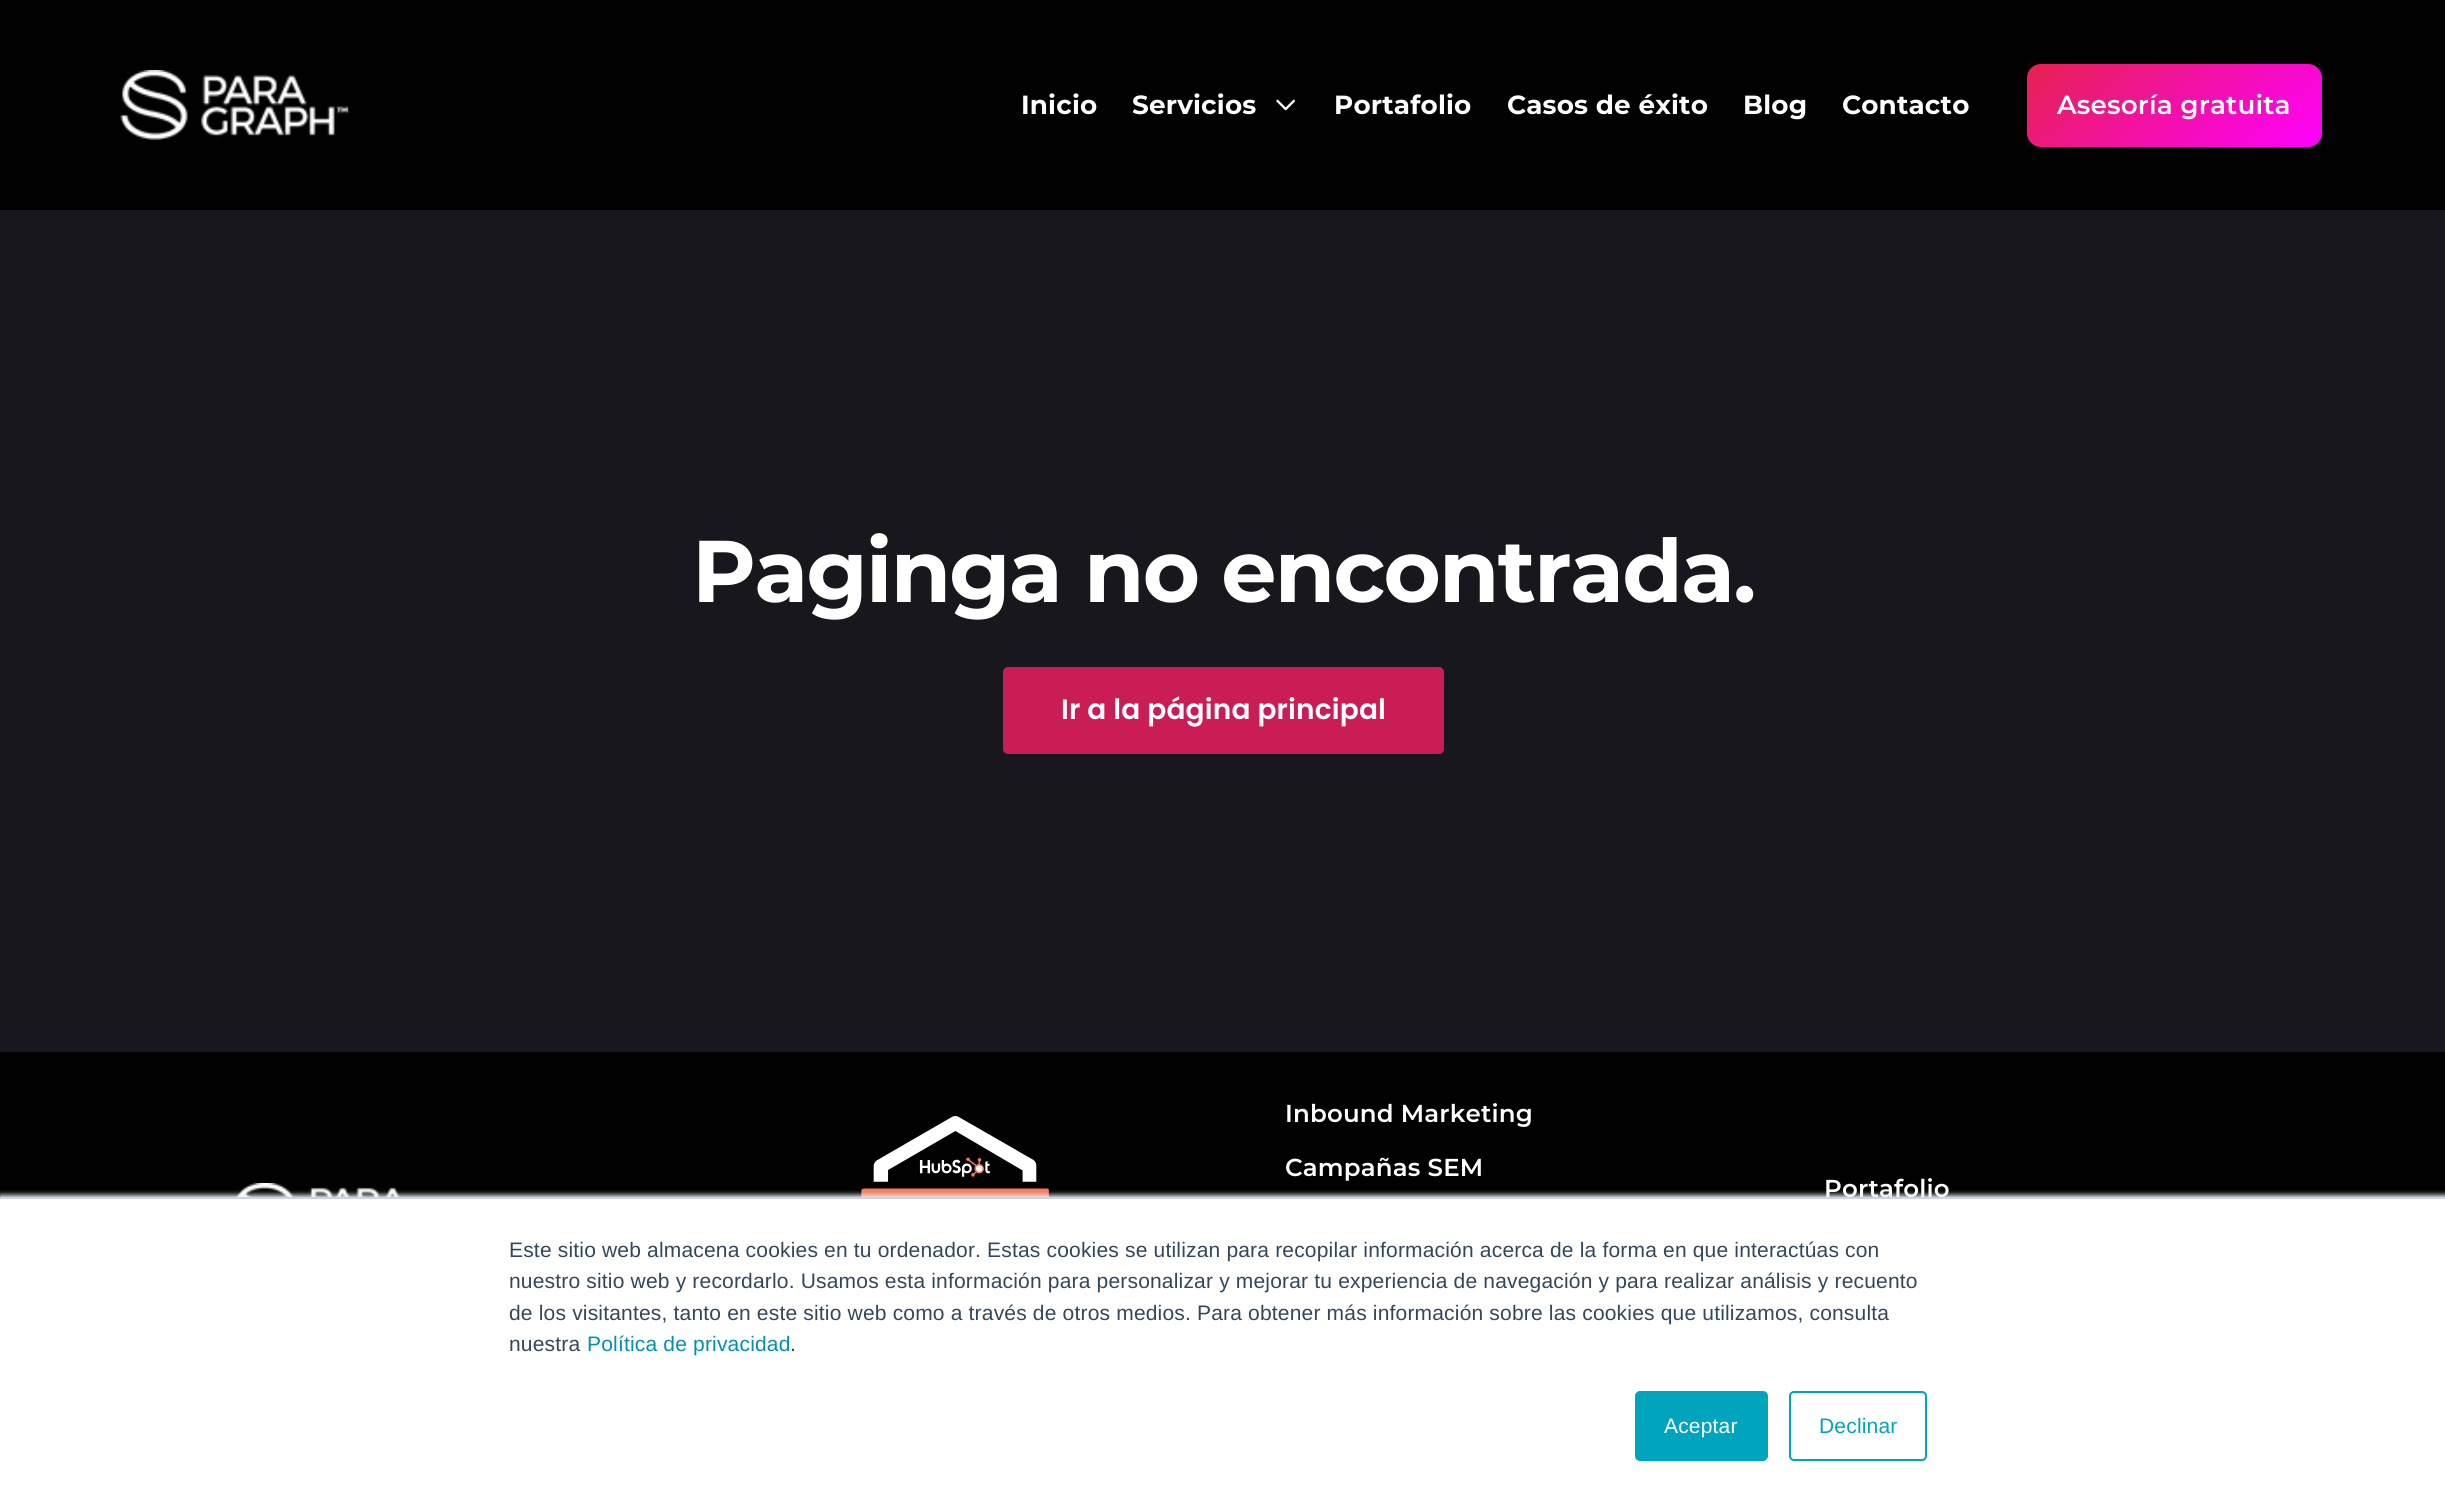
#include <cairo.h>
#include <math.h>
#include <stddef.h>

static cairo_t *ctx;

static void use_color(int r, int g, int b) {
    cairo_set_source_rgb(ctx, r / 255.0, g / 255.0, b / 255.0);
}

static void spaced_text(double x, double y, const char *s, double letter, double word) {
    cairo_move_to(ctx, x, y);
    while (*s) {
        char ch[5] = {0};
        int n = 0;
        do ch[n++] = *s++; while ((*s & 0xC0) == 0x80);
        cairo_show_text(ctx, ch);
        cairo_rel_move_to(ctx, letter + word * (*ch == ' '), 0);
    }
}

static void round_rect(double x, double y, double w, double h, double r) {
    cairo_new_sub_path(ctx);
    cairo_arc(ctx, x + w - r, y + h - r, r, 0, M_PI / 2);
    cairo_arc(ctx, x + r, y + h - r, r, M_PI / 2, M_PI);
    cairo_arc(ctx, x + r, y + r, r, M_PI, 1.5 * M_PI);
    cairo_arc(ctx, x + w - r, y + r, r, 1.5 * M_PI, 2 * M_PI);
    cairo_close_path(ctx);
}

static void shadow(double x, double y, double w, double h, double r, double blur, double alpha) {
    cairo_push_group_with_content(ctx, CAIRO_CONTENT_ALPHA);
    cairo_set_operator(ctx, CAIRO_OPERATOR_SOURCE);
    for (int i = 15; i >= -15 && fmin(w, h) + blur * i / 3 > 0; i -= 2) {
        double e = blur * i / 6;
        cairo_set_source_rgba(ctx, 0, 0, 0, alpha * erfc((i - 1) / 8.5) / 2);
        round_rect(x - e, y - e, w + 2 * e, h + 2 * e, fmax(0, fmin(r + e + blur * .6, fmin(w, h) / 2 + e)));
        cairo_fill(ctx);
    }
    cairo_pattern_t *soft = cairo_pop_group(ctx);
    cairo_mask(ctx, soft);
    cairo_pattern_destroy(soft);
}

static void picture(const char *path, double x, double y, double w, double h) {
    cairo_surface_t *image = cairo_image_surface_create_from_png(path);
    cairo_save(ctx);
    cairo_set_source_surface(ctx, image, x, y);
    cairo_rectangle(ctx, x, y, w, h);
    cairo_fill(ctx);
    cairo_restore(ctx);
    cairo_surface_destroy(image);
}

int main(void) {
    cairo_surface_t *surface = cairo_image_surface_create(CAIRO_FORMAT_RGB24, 2445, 1506);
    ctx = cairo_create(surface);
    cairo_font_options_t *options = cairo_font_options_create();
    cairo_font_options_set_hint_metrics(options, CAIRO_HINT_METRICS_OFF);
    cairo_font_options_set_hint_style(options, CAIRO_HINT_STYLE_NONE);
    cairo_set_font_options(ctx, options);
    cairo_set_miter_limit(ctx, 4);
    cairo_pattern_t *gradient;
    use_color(1, 1, 1);
    cairo_paint(ctx);
    picture("img1.png", 120, 70, 229, 70);
    cairo_select_font_face(ctx, "Montserrat", CAIRO_FONT_SLANT_NORMAL, CAIRO_FONT_WEIGHT_BOLD);
    cairo_set_font_size(ctx, 26.25);
    use_color(255, 255, 255);
    spaced_text(1021, 114, "Inicio", 0.18, 0);
    spaced_text(1132, 114, "Servicios", 0.18, 0);
    picture("img2.png", 1276, 99, 19, 12);
    spaced_text(1334, 114, "Portafolio", 0.18, 0);
    spaced_text(1507, 114, "Casos de éxito", 0.18, 0);
    spaced_text(1743, 114, "Blog", 0.18, 0);
    spaced_text(1842, 114, "Contacto", 0.18, 0);
    cairo_save(ctx);
    round_rect(2023, 60, 303, 91, 18);
    cairo_clip(ctx);
    gradient = cairo_pattern_create_linear(2093, 7.5, 2256, 202);
    cairo_pattern_add_color_stop_rgba(gradient, 0, 0.902, 0.133, 0.306, 1);
    cairo_pattern_add_color_stop_rgba(gradient, 1, 1, 0, 1, 1);
    cairo_set_source(ctx, gradient);
    cairo_pattern_destroy(gradient);
    cairo_rectangle(ctx, 2027, 63, 295, 84);
    cairo_fill(ctx);
    cairo_restore(ctx);
    round_rect(2025, 62, 299, 87, 16);
    use_color(0, 0, 0);
    cairo_set_line_width(ctx, 4);
    cairo_stroke(ctx);
    cairo_select_font_face(ctx, "Montserrat SemiBold", CAIRO_FONT_SLANT_NORMAL, CAIRO_FONT_WEIGHT_NORMAL);
    use_color(255, 255, 255);
    spaced_text(2057, 114, "Asesoría gratuita", 0.18, 0);
    use_color(23, 23, 29);
    cairo_rectangle(ctx, 0, 210, 2445, 842);
    cairo_fill(ctx);
    cairo_select_font_face(ctx, "Montserrat", CAIRO_FONT_SLANT_NORMAL, CAIRO_FONT_WEIGHT_BOLD);
    cairo_set_font_size(ctx, 87.5);
    use_color(255, 255, 255);
    spaced_text(692, 602, "Paginga no encontrada.", -1.75, 0);
    use_color(202, 28, 85);
    round_rect(1004, 668, 439, 85, 4);
    cairo_fill_preserve(ctx);
    cairo_set_line_width(ctx, 2);
    cairo_stroke(ctx);
    cairo_select_font_face(ctx, "Poppins SemiBold", CAIRO_FONT_SLANT_NORMAL, CAIRO_FONT_WEIGHT_NORMAL);
    cairo_set_font_size(ctx, 28);
    use_color(255, 255, 255);
    spaced_text(1061, 719, "Ir a la página principal", 0.18, 0);
    picture("img3.png", 236, 1183, 164, 14);
    picture("img4.png", 861, 1116, 188, 81);
    cairo_select_font_face(ctx, "Montserrat SemiBold", CAIRO_FONT_SLANT_NORMAL, CAIRO_FONT_WEIGHT_NORMAL);
    cairo_set_font_size(ctx, 24.5);
    spaced_text(1285, 1122, "Inbound Marketing", 0.18, 0);
    spaced_text(1285, 1176, "Campañas SEM", 0.18, 0);
    spaced_text(1824, 1197, "Portafolio", 0.18, 0);
    use_color(234, 240, 246);
    shadow(0, 1195, 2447, 310, 0, 2.5, 1);
    use_color(255, 255, 255);
    cairo_rectangle(ctx, 0, 1199, 2445, 307);
    cairo_fill(ctx);
    use_color(203, 214, 226);
    cairo_rectangle(ctx, 0, 1197, 2445, 2);
    cairo_fill(ctx);
    cairo_select_font_face(ctx, "Liberation Sans", CAIRO_FONT_SLANT_NORMAL, CAIRO_FONT_WEIGHT_NORMAL);
    cairo_set_font_size(ctx, 21);
    use_color(51, 71, 91);
    spaced_text(509, 1257, "Este sitio web almacena cookies en tu ordenador. Estas cookies se utilizan para recopilar información acerca de la forma en que interactúas con", 0.18, 0);
    spaced_text(509, 1288, "nuestro sitio web y recordarlo. Usamos esta información para personalizar y mejorar tu experiencia de navegación y para realizar análisis y recuento", 0.18, 0);
    spaced_text(509, 1320, "de los visitantes, tanto en este sitio web como a través de otros medios. Para obtener más información sobre las cookies que utilizamos, consulta", 0.18, 0);
    spaced_text(509, 1351, "nuestra", 0.18, 0);
    use_color(0, 145, 174);
    spaced_text(587, 1351, "Política de privacidad", 0.18, 0);
    use_color(51, 71, 91);
    spaced_text(790, 1351, ".", 0.18, 0);
    use_color(0, 164, 189);
    round_rect(1636, 1392, 131, 68, 4);
    cairo_fill_preserve(ctx);
    cairo_stroke(ctx);
    use_color(255, 255, 255);
    spaced_text(1664, 1433, "Aceptar", 0.18, 0);
    round_rect(1790, 1392, 136, 68, 4);
    use_color(0, 164, 189);
    cairo_stroke(ctx);
    spaced_text(1819, 1433, "Declinar", 0.18, 0);
    cairo_surface_write_to_png(surface, "result.png");
    cairo_font_options_destroy(options);
    cairo_destroy(ctx);
    cairo_surface_destroy(surface);
    return 0;
}
